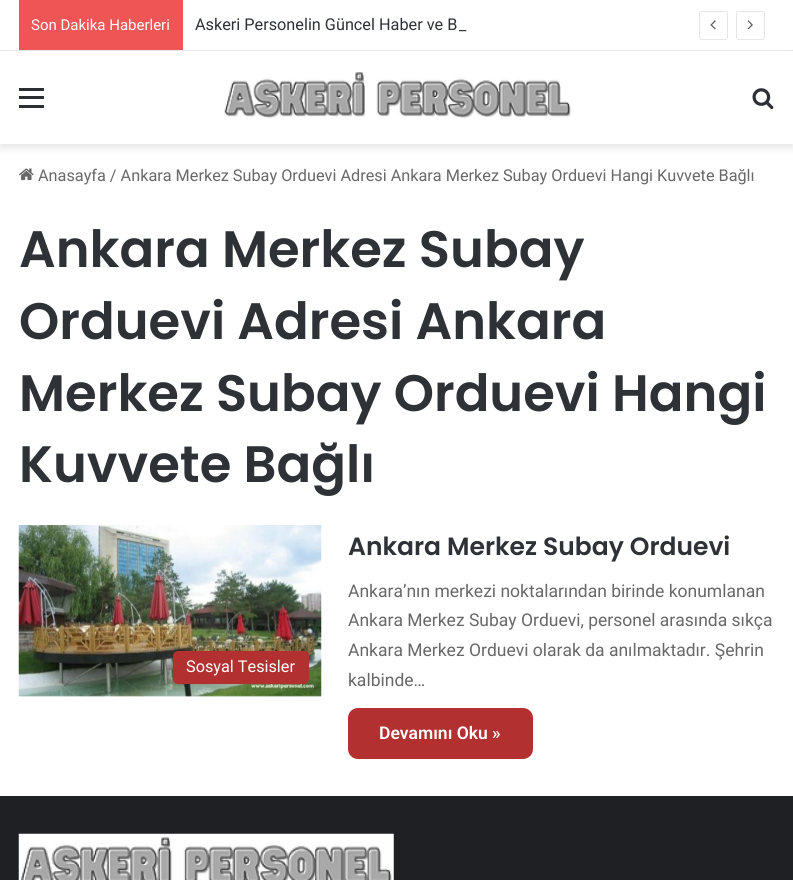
#include <cairo.h>
#include <math.h>
#include <stddef.h>

static cairo_t *ctx;

static void use_color(int r, int g, int b) {
    cairo_set_source_rgb(ctx, r / 255.0, g / 255.0, b / 255.0);
}

static void round_rect(double x, double y, double w, double h, double r) {
    cairo_new_sub_path(ctx);
    cairo_arc(ctx, x + w - r, y + h - r, r, 0, M_PI / 2);
    cairo_arc(ctx, x + r, y + h - r, r, M_PI / 2, M_PI);
    cairo_arc(ctx, x + r, y + r, r, M_PI, 1.5 * M_PI);
    cairo_arc(ctx, x + w - r, y + r, r, 1.5 * M_PI, 2 * M_PI);
    cairo_close_path(ctx);
}

static void shadow(double x, double y, double w, double h, double r, double blur, double alpha) {
    cairo_push_group_with_content(ctx, CAIRO_CONTENT_ALPHA);
    cairo_set_operator(ctx, CAIRO_OPERATOR_SOURCE);
    for (int i = 15; i >= -15 && fmin(w, h) + blur * i / 3 > 0; i -= 2) {
        double e = blur * i / 6;
        cairo_set_source_rgba(ctx, 0, 0, 0, alpha * erfc((i - 1) / 8.5) / 2);
        round_rect(x - e, y - e, w + 2 * e, h + 2 * e, fmax(0, fmin(r + e + blur * .6, fmin(w, h) / 2 + e)));
        cairo_fill(ctx);
    }
    cairo_pattern_t *soft = cairo_pop_group(ctx);
    cairo_mask(ctx, soft);
    cairo_pattern_destroy(soft);
}

static void picture(const char *path, double x, double y, double w, double h) {
    cairo_surface_t *image = cairo_image_surface_create_from_png(path);
    cairo_save(ctx);
    cairo_set_source_surface(ctx, image, x, y);
    cairo_rectangle(ctx, x, y, w, h);
    cairo_fill(ctx);
    cairo_restore(ctx);
    cairo_surface_destroy(image);
}

int main(void) {
    cairo_surface_t *surface = cairo_image_surface_create(CAIRO_FORMAT_RGB24, 793, 880);
    ctx = cairo_create(surface);
    cairo_font_options_t *options = cairo_font_options_create();
    cairo_font_options_set_hint_metrics(options, CAIRO_HINT_METRICS_OFF);
    cairo_font_options_set_hint_style(options, CAIRO_HINT_STYLE_NONE);
    cairo_set_font_options(ctx, options);
    cairo_set_miter_limit(ctx, 4);
    use_color(255, 255, 255);
    cairo_paint(ctx);
    use_color(0, 0, 0);
    shadow(0, 55, 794, 93, 0, 4.5, 0.1);
    use_color(255, 255, 255);
    cairo_rectangle(ctx, 6, 49, 782, 1);
    cairo_fill(ctx);
    use_color(230, 230, 230);
    cairo_rectangle(ctx, 0, 50, 793, 1);
    cairo_fill(ctx);
    use_color(240, 85, 85);
    cairo_rectangle(ctx, 19, 0, 164, 50);
    cairo_fill(ctx);
    cairo_select_font_face(ctx, "Roboto", CAIRO_FONT_SLANT_NORMAL, CAIRO_FONT_WEIGHT_NORMAL);
    cairo_set_font_size(ctx, 15);
    use_color(255, 255, 255);
    cairo_move_to(ctx, 31, 30);
    cairo_show_text(ctx, "Son Dakika Haberleri");
    cairo_set_font_size(ctx, 16.25);
    use_color(46, 49, 54);
    cairo_move_to(ctx, 195, 30);
    cairo_show_text(ctx, "Askeri Personelin Güncel Haber ve B");
    cairo_move_to(ctx, 459, 30);
    cairo_show_text(ctx, "_");
    round_rect(699.5, 11.5, 28, 28, 2);
    use_color(230, 230, 230);
    cairo_set_line_width(ctx, 1);
    cairo_stroke(ctx);
    picture("img1.png", 710, 20, 6, 10);
    round_rect(736.5, 11.5, 28, 28, 2);
    cairo_stroke(ctx);
    picture("img2.png", 747, 20, 6, 10);
    use_color(255, 255, 255);
    cairo_rectangle(ctx, 0, 51, 793, 93);
    cairo_fill(ctx);
    use_color(44, 47, 52);
    cairo_rectangle(ctx, 19, 96, 25, 3);
    cairo_fill(ctx);
    cairo_rectangle(ctx, 19, 88, 25, 3);
    cairo_fill(ctx);
    cairo_rectangle(ctx, 19, 105, 25, 3);
    cairo_fill(ctx);
    picture("img3.png", 224, 72, 347, 47);
    picture("img4.png", 752, 88, 22, 22);
    picture("img5.png", 19, 168, 15, 13);
    use_color(104, 104, 104);
    cairo_move_to(ctx, 38, 181);
    cairo_show_text(ctx, "Anasayfa / Ankara Merkez Subay Orduevi Adresi Ankara Merkez Subay Orduevi Hangi Kuvvete Bağlı");
    cairo_select_font_face(ctx, "Poppins SemiBold", CAIRO_FONT_SLANT_NORMAL, CAIRO_FONT_WEIGHT_NORMAL);
    cairo_set_font_size(ctx, 51.25);
    use_color(46, 49, 54);
    cairo_move_to(ctx, 19, 267);
    cairo_show_text(ctx, "Ankara Merkez Subay");
    cairo_move_to(ctx, 19, 339);
    cairo_show_text(ctx, "Orduevi Adresi Ankara");
    cairo_move_to(ctx, 19, 411);
    cairo_show_text(ctx, "Merkez Subay Orduevi Hangi");
    cairo_move_to(ctx, 19, 482);
    cairo_show_text(ctx, "Kuvvete Bağlı");
    picture("img6.png", 18, 525, 304, 172);
    use_color(179, 48, 48);
    round_rect(173, 651, 136, 33, 5);
    cairo_fill(ctx);
    cairo_select_font_face(ctx, "Roboto", CAIRO_FONT_SLANT_NORMAL, CAIRO_FONT_WEIGHT_NORMAL);
    cairo_set_font_size(ctx, 16.25);
    use_color(255, 255, 255);
    cairo_move_to(ctx, 186, 672);
    cairo_show_text(ctx, "Sosyal Tesisler");
    cairo_select_font_face(ctx, "Poppins SemiBold", CAIRO_FONT_SLANT_NORMAL, CAIRO_FONT_WEIGHT_NORMAL);
    cairo_set_font_size(ctx, 25);
    use_color(46, 49, 54);
    cairo_move_to(ctx, 348, 555);
    cairo_show_text(ctx, "Ankara Merkez Subay Orduevi");
    cairo_select_font_face(ctx, "Roboto", CAIRO_FONT_SLANT_NORMAL, CAIRO_FONT_WEIGHT_NORMAL);
    cairo_set_font_size(ctx, 17.5);
    use_color(104, 104, 104);
    cairo_move_to(ctx, 348, 597);
    cairo_show_text(ctx, "Ankara’nın merkezi noktalarından birinde konumlanan");
    cairo_move_to(ctx, 348, 626);
    cairo_show_text(ctx, "Ankara Merkez Subay Orduevi, personel arasında sıkça");
    cairo_move_to(ctx, 348, 656);
    cairo_show_text(ctx, "Ankara Merkez Orduevi olarak da anılmaktadır. Şehrin");
    cairo_move_to(ctx, 348, 686);
    cairo_show_text(ctx, "kalbinde…");
    use_color(179, 48, 48);
    round_rect(348, 708, 185, 51, 10);
    cairo_fill(ctx);
    cairo_select_font_face(ctx, "Roboto SemiBold", CAIRO_FONT_SLANT_NORMAL, CAIRO_FONT_WEIGHT_NORMAL);
    use_color(255, 255, 255);
    cairo_move_to(ctx, 379, 739);
    cairo_show_text(ctx, "Devamını Oku »");
    use_color(31, 32, 36);
    cairo_rectangle(ctx, 0, 796, 793, 84);
    cairo_fill(ctx);
    picture("img7.png", 18, 833, 376, 47);
    cairo_surface_write_to_png(surface, "result.png");
    cairo_font_options_destroy(options);
    cairo_destroy(ctx);
    cairo_surface_destroy(surface);
    return 0;
}
